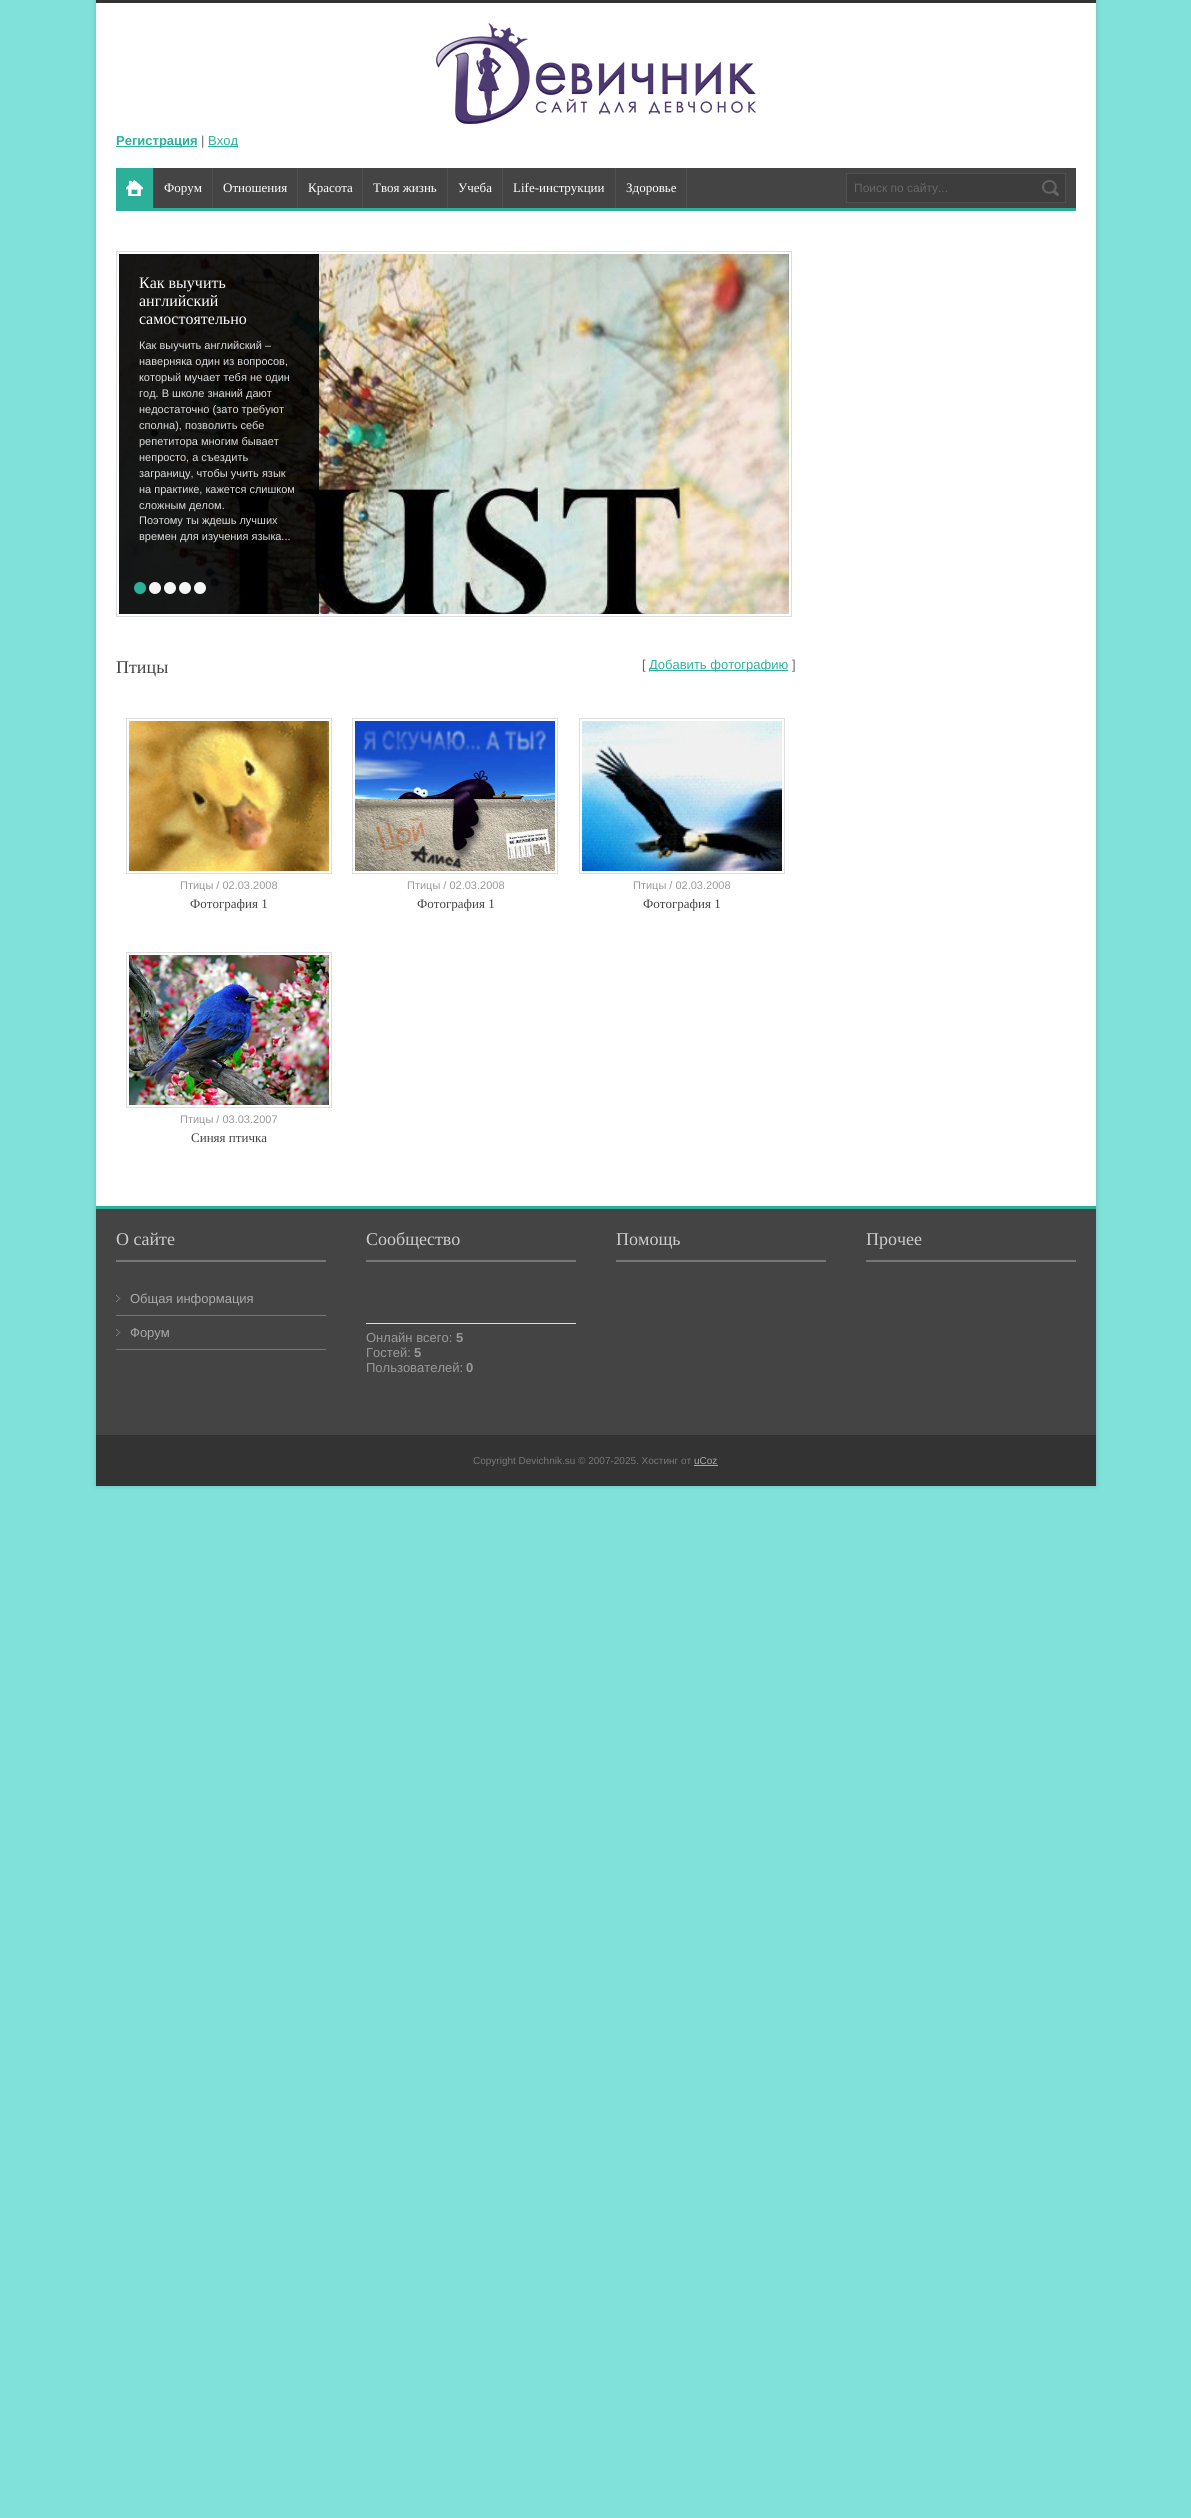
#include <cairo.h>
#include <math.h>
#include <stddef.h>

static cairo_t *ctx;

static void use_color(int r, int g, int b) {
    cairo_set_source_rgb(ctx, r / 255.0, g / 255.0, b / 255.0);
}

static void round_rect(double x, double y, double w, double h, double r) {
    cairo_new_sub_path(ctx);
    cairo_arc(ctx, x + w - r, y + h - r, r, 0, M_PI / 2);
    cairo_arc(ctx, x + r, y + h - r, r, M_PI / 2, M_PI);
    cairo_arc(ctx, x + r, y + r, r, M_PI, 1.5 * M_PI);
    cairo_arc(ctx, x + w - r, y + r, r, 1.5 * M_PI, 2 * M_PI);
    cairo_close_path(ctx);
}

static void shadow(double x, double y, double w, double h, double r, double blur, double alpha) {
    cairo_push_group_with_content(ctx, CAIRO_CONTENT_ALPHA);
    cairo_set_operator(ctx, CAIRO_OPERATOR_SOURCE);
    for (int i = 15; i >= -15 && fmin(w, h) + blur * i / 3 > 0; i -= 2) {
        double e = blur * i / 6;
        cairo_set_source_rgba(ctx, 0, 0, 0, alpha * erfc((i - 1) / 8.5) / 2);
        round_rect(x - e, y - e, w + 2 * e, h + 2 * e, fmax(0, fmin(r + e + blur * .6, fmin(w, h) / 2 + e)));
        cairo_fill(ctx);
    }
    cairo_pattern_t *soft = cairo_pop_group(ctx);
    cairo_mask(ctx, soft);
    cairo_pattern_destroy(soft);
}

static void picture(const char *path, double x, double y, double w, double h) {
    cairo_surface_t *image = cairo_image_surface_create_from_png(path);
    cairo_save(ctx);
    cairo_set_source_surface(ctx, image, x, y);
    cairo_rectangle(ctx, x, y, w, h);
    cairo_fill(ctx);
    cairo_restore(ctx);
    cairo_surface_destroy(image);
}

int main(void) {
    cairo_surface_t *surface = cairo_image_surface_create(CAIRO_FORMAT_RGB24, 1191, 2518);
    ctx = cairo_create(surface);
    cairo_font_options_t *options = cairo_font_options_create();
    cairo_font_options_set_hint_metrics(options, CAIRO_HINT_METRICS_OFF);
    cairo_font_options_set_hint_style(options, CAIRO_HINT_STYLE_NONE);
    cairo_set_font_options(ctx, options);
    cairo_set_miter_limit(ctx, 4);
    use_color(128, 224, 218);
    cairo_paint(ctx);
    use_color(0, 0, 0);
    shadow(96, 0, 1000, 1486, 0, 2.5, 0.15);
    use_color(255, 255, 255);
    cairo_rectangle(ctx, 96, 3, 1000, 1203);
    cairo_fill(ctx);
    use_color(51, 51, 51);
    cairo_rectangle(ctx, 96, 0, 1000, 3);
    cairo_fill(ctx);
    picture("img1.png", 436, 23, 320, 101);
    use_color(44, 176, 154);
    cairo_rectangle(ctx, 116, 146, 81, 1);
    cairo_fill(ctx);
    cairo_select_font_face(ctx, "Liberation Sans", CAIRO_FONT_SLANT_NORMAL, CAIRO_FONT_WEIGHT_BOLD);
    cairo_set_font_size(ctx, 13);
    cairo_move_to(ctx, 116, 145);
    cairo_show_text(ctx, "Регистрация");
    cairo_select_font_face(ctx, "Liberation Sans", CAIRO_FONT_SLANT_NORMAL, CAIRO_FONT_WEIGHT_NORMAL);
    use_color(102, 102, 102);
    cairo_move_to(ctx, 201, 145);
    cairo_show_text(ctx, "|");
    use_color(44, 176, 154);
    cairo_rectangle(ctx, 208, 146, 30, 1);
    cairo_fill(ctx);
    cairo_move_to(ctx, 208, 145);
    cairo_show_text(ctx, "Вход");
    use_color(68, 68, 68);
    cairo_rectangle(ctx, 154, 168, 922, 40);
    cairo_fill(ctx);
    use_color(44, 176, 154);
    cairo_rectangle(ctx, 116, 208, 960, 3);
    cairo_fill(ctx);
    cairo_rectangle(ctx, 116, 168, 37, 40);
    cairo_fill(ctx);
    picture("img2.png", 126, 180, 17, 16);
    use_color(80, 80, 80);
    cairo_rectangle(ctx, 153, 168, 1, 40);
    cairo_fill(ctx);
    cairo_rectangle(ctx, 212, 168, 1, 40);
    cairo_fill(ctx);
    cairo_select_font_face(ctx, "Liberation Serif", CAIRO_FONT_SLANT_NORMAL, CAIRO_FONT_WEIGHT_NORMAL);
    use_color(255, 255, 255);
    cairo_move_to(ctx, 164, 192);
    cairo_show_text(ctx, "Форум");
    use_color(80, 80, 80);
    cairo_rectangle(ctx, 297, 168, 1, 40);
    cairo_fill(ctx);
    use_color(255, 255, 255);
    cairo_move_to(ctx, 223, 192);
    cairo_show_text(ctx, "Отношения");
    use_color(80, 80, 80);
    cairo_rectangle(ctx, 362, 168, 1, 40);
    cairo_fill(ctx);
    use_color(255, 255, 255);
    cairo_move_to(ctx, 308, 192);
    cairo_show_text(ctx, "Красота");
    use_color(80, 80, 80);
    cairo_rectangle(ctx, 447, 168, 1, 40);
    cairo_fill(ctx);
    use_color(255, 255, 255);
    cairo_move_to(ctx, 373, 192);
    cairo_show_text(ctx, "Твоя жизнь");
    use_color(80, 80, 80);
    cairo_rectangle(ctx, 502, 168, 1, 40);
    cairo_fill(ctx);
    use_color(255, 255, 255);
    cairo_move_to(ctx, 458, 192);
    cairo_show_text(ctx, "Учеба");
    use_color(80, 80, 80);
    cairo_rectangle(ctx, 615, 168, 1, 40);
    cairo_fill(ctx);
    use_color(255, 255, 255);
    cairo_move_to(ctx, 513, 192);
    cairo_show_text(ctx, "Life-инструкции");
    use_color(80, 80, 80);
    cairo_rectangle(ctx, 686, 168, 1, 40);
    cairo_fill(ctx);
    use_color(255, 255, 255);
    cairo_move_to(ctx, 626, 192);
    cairo_show_text(ctx, "Здоровье");
    use_color(61, 61, 61);
    cairo_rectangle(ctx, 846.5, 173.5, 219, 29);
    cairo_fill_preserve(ctx);
    use_color(80, 80, 80);
    cairo_set_line_width(ctx, 1);
    cairo_stroke(ctx);
    cairo_select_font_face(ctx, "Liberation Sans", CAIRO_FONT_SLANT_NORMAL, CAIRO_FONT_WEIGHT_NORMAL);
    cairo_set_font_size(ctx, 12);
    use_color(102, 102, 102);
    cairo_move_to(ctx, 854, 192);
    cairo_show_text(ctx, "Поиск по сайту...");
    picture("img3.png", 1042, 180, 17, 16);
    cairo_rectangle(ctx, 116.5, 251.5, 675, 365);
    use_color(221, 221, 221);
    cairo_stroke(ctx);
    picture("img4.png", 119, 254, 670, 360);
    cairo_set_source_rgba(ctx, 0, 0, 0, 0.9);
    cairo_rectangle(ctx, 119, 254, 200, 360);
    cairo_fill(ctx);
    cairo_select_font_face(ctx, "Liberation Serif", CAIRO_FONT_SLANT_NORMAL, CAIRO_FONT_WEIGHT_NORMAL);
    cairo_set_font_size(ctx, 16);
    use_color(255, 255, 255);
    cairo_move_to(ctx, 139, 288);
    cairo_show_text(ctx, "Как выучить");
    cairo_move_to(ctx, 139, 306);
    cairo_show_text(ctx, "английский");
    cairo_move_to(ctx, 139, 324);
    cairo_show_text(ctx, "самостоятельно");
    cairo_select_font_face(ctx, "Liberation Sans", CAIRO_FONT_SLANT_NORMAL, CAIRO_FONT_WEIGHT_NORMAL);
    cairo_set_font_size(ctx, 11);
    use_color(221, 221, 221);
    cairo_move_to(ctx, 139, 349);
    cairo_show_text(ctx, "Как выучить английский –");
    cairo_move_to(ctx, 139, 365);
    cairo_show_text(ctx, "наверняка один из вопросов,");
    cairo_move_to(ctx, 139, 381);
    cairo_show_text(ctx, "который мучает тебя не один");
    cairo_move_to(ctx, 139, 397);
    cairo_show_text(ctx, "год. В школе знаний дают");
    cairo_move_to(ctx, 139, 413);
    cairo_show_text(ctx, "недостаточно (зато требуют");
    cairo_move_to(ctx, 139, 429);
    cairo_show_text(ctx, "сполна), позволить себе");
    cairo_move_to(ctx, 139, 445);
    cairo_show_text(ctx, "репетитора многим бывает");
    cairo_move_to(ctx, 139, 461);
    cairo_show_text(ctx, "непросто, а съездить");
    cairo_move_to(ctx, 139, 477);
    cairo_show_text(ctx, "заграницу, чтобы учить язык");
    cairo_move_to(ctx, 139, 493);
    cairo_show_text(ctx, "на практике, кажется слишком");
    cairo_move_to(ctx, 139, 509);
    cairo_show_text(ctx, "сложным делом.");
    cairo_move_to(ctx, 139, 524);
    cairo_show_text(ctx, "Поэтому ты ждешь лучших");
    cairo_move_to(ctx, 139, 540);
    cairo_show_text(ctx, "времен для изучения языка...");
    picture("img5.png", 788, 254, 1, 351);
    use_color(44, 176, 154);
    cairo_arc(ctx, 140, 588, 6, 0, 2 * M_PI);
    cairo_fill(ctx);
    use_color(245, 245, 245);
    cairo_arc(ctx, 155, 588, 6, 0, 2 * M_PI);
    cairo_fill(ctx);
    cairo_arc(ctx, 170, 588, 6, 0, 2 * M_PI);
    cairo_fill(ctx);
    cairo_arc(ctx, 185, 588, 6, 0, 2 * M_PI);
    cairo_fill(ctx);
    cairo_arc(ctx, 200, 588, 6, 0, 2 * M_PI);
    cairo_fill(ctx);
    cairo_select_font_face(ctx, "Liberation Serif", CAIRO_FONT_SLANT_NORMAL, CAIRO_FONT_WEIGHT_NORMAL);
    cairo_set_font_size(ctx, 18);
    use_color(68, 68, 68);
    cairo_move_to(ctx, 116, 673);
    cairo_show_text(ctx, "Птицы");
    cairo_select_font_face(ctx, "Liberation Sans", CAIRO_FONT_SLANT_NORMAL, CAIRO_FONT_WEIGHT_NORMAL);
    cairo_set_font_size(ctx, 13);
    use_color(102, 102, 102);
    cairo_move_to(ctx, 642, 669);
    cairo_show_text(ctx, "[");
    use_color(44, 176, 154);
    cairo_rectangle(ctx, 649, 670, 139, 1);
    cairo_fill(ctx);
    cairo_move_to(ctx, 649, 669);
    cairo_show_text(ctx, "Добавить фотографию");
    use_color(102, 102, 102);
    cairo_move_to(ctx, 792, 669);
    cairo_show_text(ctx, "]");
    cairo_rectangle(ctx, 126.5, 718.5, 205, 155);
    use_color(221, 221, 221);
    cairo_stroke(ctx);
    picture("img6.png", 129, 721, 200, 150);
    cairo_set_font_size(ctx, 11);
    use_color(153, 153, 153);
    cairo_move_to(ctx, 180, 889);
    cairo_show_text(ctx, "Птицы / 02.03.2008");
    cairo_select_font_face(ctx, "Liberation Serif", CAIRO_FONT_SLANT_NORMAL, CAIRO_FONT_WEIGHT_NORMAL);
    cairo_set_font_size(ctx, 13);
    use_color(68, 68, 68);
    cairo_move_to(ctx, 190, 908);
    cairo_show_text(ctx, "Фотография 1");
    cairo_rectangle(ctx, 352.5, 718.5, 205, 155);
    use_color(221, 221, 221);
    cairo_stroke(ctx);
    picture("img7.png", 355, 721, 200, 150);
    cairo_select_font_face(ctx, "Liberation Sans", CAIRO_FONT_SLANT_NORMAL, CAIRO_FONT_WEIGHT_NORMAL);
    cairo_set_font_size(ctx, 11);
    use_color(153, 153, 153);
    cairo_move_to(ctx, 407, 889);
    cairo_show_text(ctx, "Птицы / 02.03.2008");
    cairo_select_font_face(ctx, "Liberation Serif", CAIRO_FONT_SLANT_NORMAL, CAIRO_FONT_WEIGHT_NORMAL);
    cairo_set_font_size(ctx, 13);
    use_color(68, 68, 68);
    cairo_move_to(ctx, 417, 908);
    cairo_show_text(ctx, "Фотография 1");
    cairo_rectangle(ctx, 579.5, 718.5, 205, 155);
    use_color(221, 221, 221);
    cairo_stroke(ctx);
    picture("img8.png", 582, 721, 200, 150);
    cairo_select_font_face(ctx, "Liberation Sans", CAIRO_FONT_SLANT_NORMAL, CAIRO_FONT_WEIGHT_NORMAL);
    cairo_set_font_size(ctx, 11);
    use_color(153, 153, 153);
    cairo_move_to(ctx, 633, 889);
    cairo_show_text(ctx, "Птицы / 02.03.2008");
    cairo_select_font_face(ctx, "Liberation Serif", CAIRO_FONT_SLANT_NORMAL, CAIRO_FONT_WEIGHT_NORMAL);
    cairo_set_font_size(ctx, 13);
    use_color(68, 68, 68);
    cairo_move_to(ctx, 643, 908);
    cairo_show_text(ctx, "Фотография 1");
    cairo_rectangle(ctx, 126.5, 952.5, 205, 155);
    use_color(221, 221, 221);
    cairo_stroke(ctx);
    picture("img9.png", 129, 955, 200, 150);
    cairo_select_font_face(ctx, "Liberation Sans", CAIRO_FONT_SLANT_NORMAL, CAIRO_FONT_WEIGHT_NORMAL);
    cairo_set_font_size(ctx, 11);
    use_color(153, 153, 153);
    cairo_move_to(ctx, 180, 1123);
    cairo_show_text(ctx, "Птицы / 03.03.2007");
    cairo_select_font_face(ctx, "Liberation Serif", CAIRO_FONT_SLANT_NORMAL, CAIRO_FONT_WEIGHT_NORMAL);
    cairo_set_font_size(ctx, 13);
    use_color(68, 68, 68);
    cairo_move_to(ctx, 191, 1142);
    cairo_show_text(ctx, "Синяя птичка");
    cairo_rectangle(ctx, 96, 1209, 1000, 226);
    cairo_fill(ctx);
    use_color(44, 176, 154);
    cairo_rectangle(ctx, 96, 1206, 1000, 3);
    cairo_fill(ctx);
    use_color(119, 119, 119);
    cairo_rectangle(ctx, 116, 1260, 210, 2);
    cairo_fill(ctx);
    cairo_set_font_size(ctx, 18);
    use_color(204, 204, 204);
    cairo_move_to(ctx, 116, 1245);
    cairo_show_text(ctx, "О сайте");
    picture("img10.png", 116, 1295, 5, 7);
    use_color(119, 119, 119);
    cairo_rectangle(ctx, 116, 1315, 210, 1);
    cairo_fill(ctx);
    cairo_select_font_face(ctx, "Liberation Sans", CAIRO_FONT_SLANT_NORMAL, CAIRO_FONT_WEIGHT_NORMAL);
    cairo_set_font_size(ctx, 13);
    use_color(170, 170, 170);
    cairo_move_to(ctx, 130, 1303);
    cairo_show_text(ctx, "Общая информация");
    picture("img10.png", 116, 1329, 5, 7);
    use_color(119, 119, 119);
    cairo_rectangle(ctx, 116, 1349, 210, 1);
    cairo_fill(ctx);
    use_color(170, 170, 170);
    cairo_move_to(ctx, 130, 1337);
    cairo_show_text(ctx, "Форум");
    use_color(119, 119, 119);
    cairo_rectangle(ctx, 366, 1260, 210, 2);
    cairo_fill(ctx);
    cairo_select_font_face(ctx, "Liberation Serif", CAIRO_FONT_SLANT_NORMAL, CAIRO_FONT_WEIGHT_NORMAL);
    cairo_set_font_size(ctx, 18);
    use_color(204, 204, 204);
    cairo_move_to(ctx, 366, 1245);
    cairo_show_text(ctx, "Сообщество");
    use_color(221, 221, 221);
    cairo_rectangle(ctx, 366, 1323, 210, 1);
    cairo_fill(ctx);
    cairo_select_font_face(ctx, "Liberation Sans", CAIRO_FONT_SLANT_NORMAL, CAIRO_FONT_WEIGHT_NORMAL);
    cairo_set_font_size(ctx, 13);
    use_color(153, 153, 153);
    cairo_move_to(ctx, 366, 1342);
    cairo_show_text(ctx, "Онлайн всего:");
    cairo_select_font_face(ctx, "Liberation Sans", CAIRO_FONT_SLANT_NORMAL, CAIRO_FONT_WEIGHT_BOLD);
    cairo_move_to(ctx, 456, 1342);
    cairo_show_text(ctx, "5");
    cairo_select_font_face(ctx, "Liberation Sans", CAIRO_FONT_SLANT_NORMAL, CAIRO_FONT_WEIGHT_NORMAL);
    cairo_move_to(ctx, 366, 1357);
    cairo_show_text(ctx, "Гостей:");
    cairo_select_font_face(ctx, "Liberation Sans", CAIRO_FONT_SLANT_NORMAL, CAIRO_FONT_WEIGHT_BOLD);
    cairo_move_to(ctx, 414, 1357);
    cairo_show_text(ctx, "5");
    cairo_select_font_face(ctx, "Liberation Sans", CAIRO_FONT_SLANT_NORMAL, CAIRO_FONT_WEIGHT_NORMAL);
    cairo_move_to(ctx, 366, 1372);
    cairo_show_text(ctx, "Пользователей:");
    cairo_select_font_face(ctx, "Liberation Sans", CAIRO_FONT_SLANT_NORMAL, CAIRO_FONT_WEIGHT_BOLD);
    cairo_move_to(ctx, 466, 1372);
    cairo_show_text(ctx, "0");
    use_color(119, 119, 119);
    cairo_rectangle(ctx, 616, 1260, 210, 2);
    cairo_fill(ctx);
    cairo_select_font_face(ctx, "Liberation Serif", CAIRO_FONT_SLANT_NORMAL, CAIRO_FONT_WEIGHT_NORMAL);
    cairo_set_font_size(ctx, 18);
    use_color(204, 204, 204);
    cairo_move_to(ctx, 616, 1245);
    cairo_show_text(ctx, "Помощь");
    use_color(119, 119, 119);
    cairo_rectangle(ctx, 866, 1260, 210, 2);
    cairo_fill(ctx);
    use_color(204, 204, 204);
    cairo_move_to(ctx, 866, 1245);
    cairo_show_text(ctx, "Прочее");
    use_color(51, 51, 51);
    cairo_rectangle(ctx, 96, 1435, 1000, 51);
    cairo_fill(ctx);
    cairo_select_font_face(ctx, "Liberation Sans", CAIRO_FONT_SLANT_NORMAL, CAIRO_FONT_WEIGHT_NORMAL);
    cairo_set_font_size(ctx, 10);
    use_color(119, 119, 119);
    cairo_move_to(ctx, 473, 1464);
    cairo_show_text(ctx, "Copyright Devichnik.su © 2007-2025. Хостинг от");
    use_color(170, 170, 170);
    cairo_move_to(ctx, 694, 1464);
    cairo_show_text(ctx, "uCoz");
    cairo_rectangle(ctx, 694, 1465, 24, 1);
    cairo_fill(ctx);
    cairo_surface_write_to_png(surface, "result.png");
    cairo_font_options_destroy(options);
    cairo_destroy(ctx);
    cairo_surface_destroy(surface);
    return 0;
}
